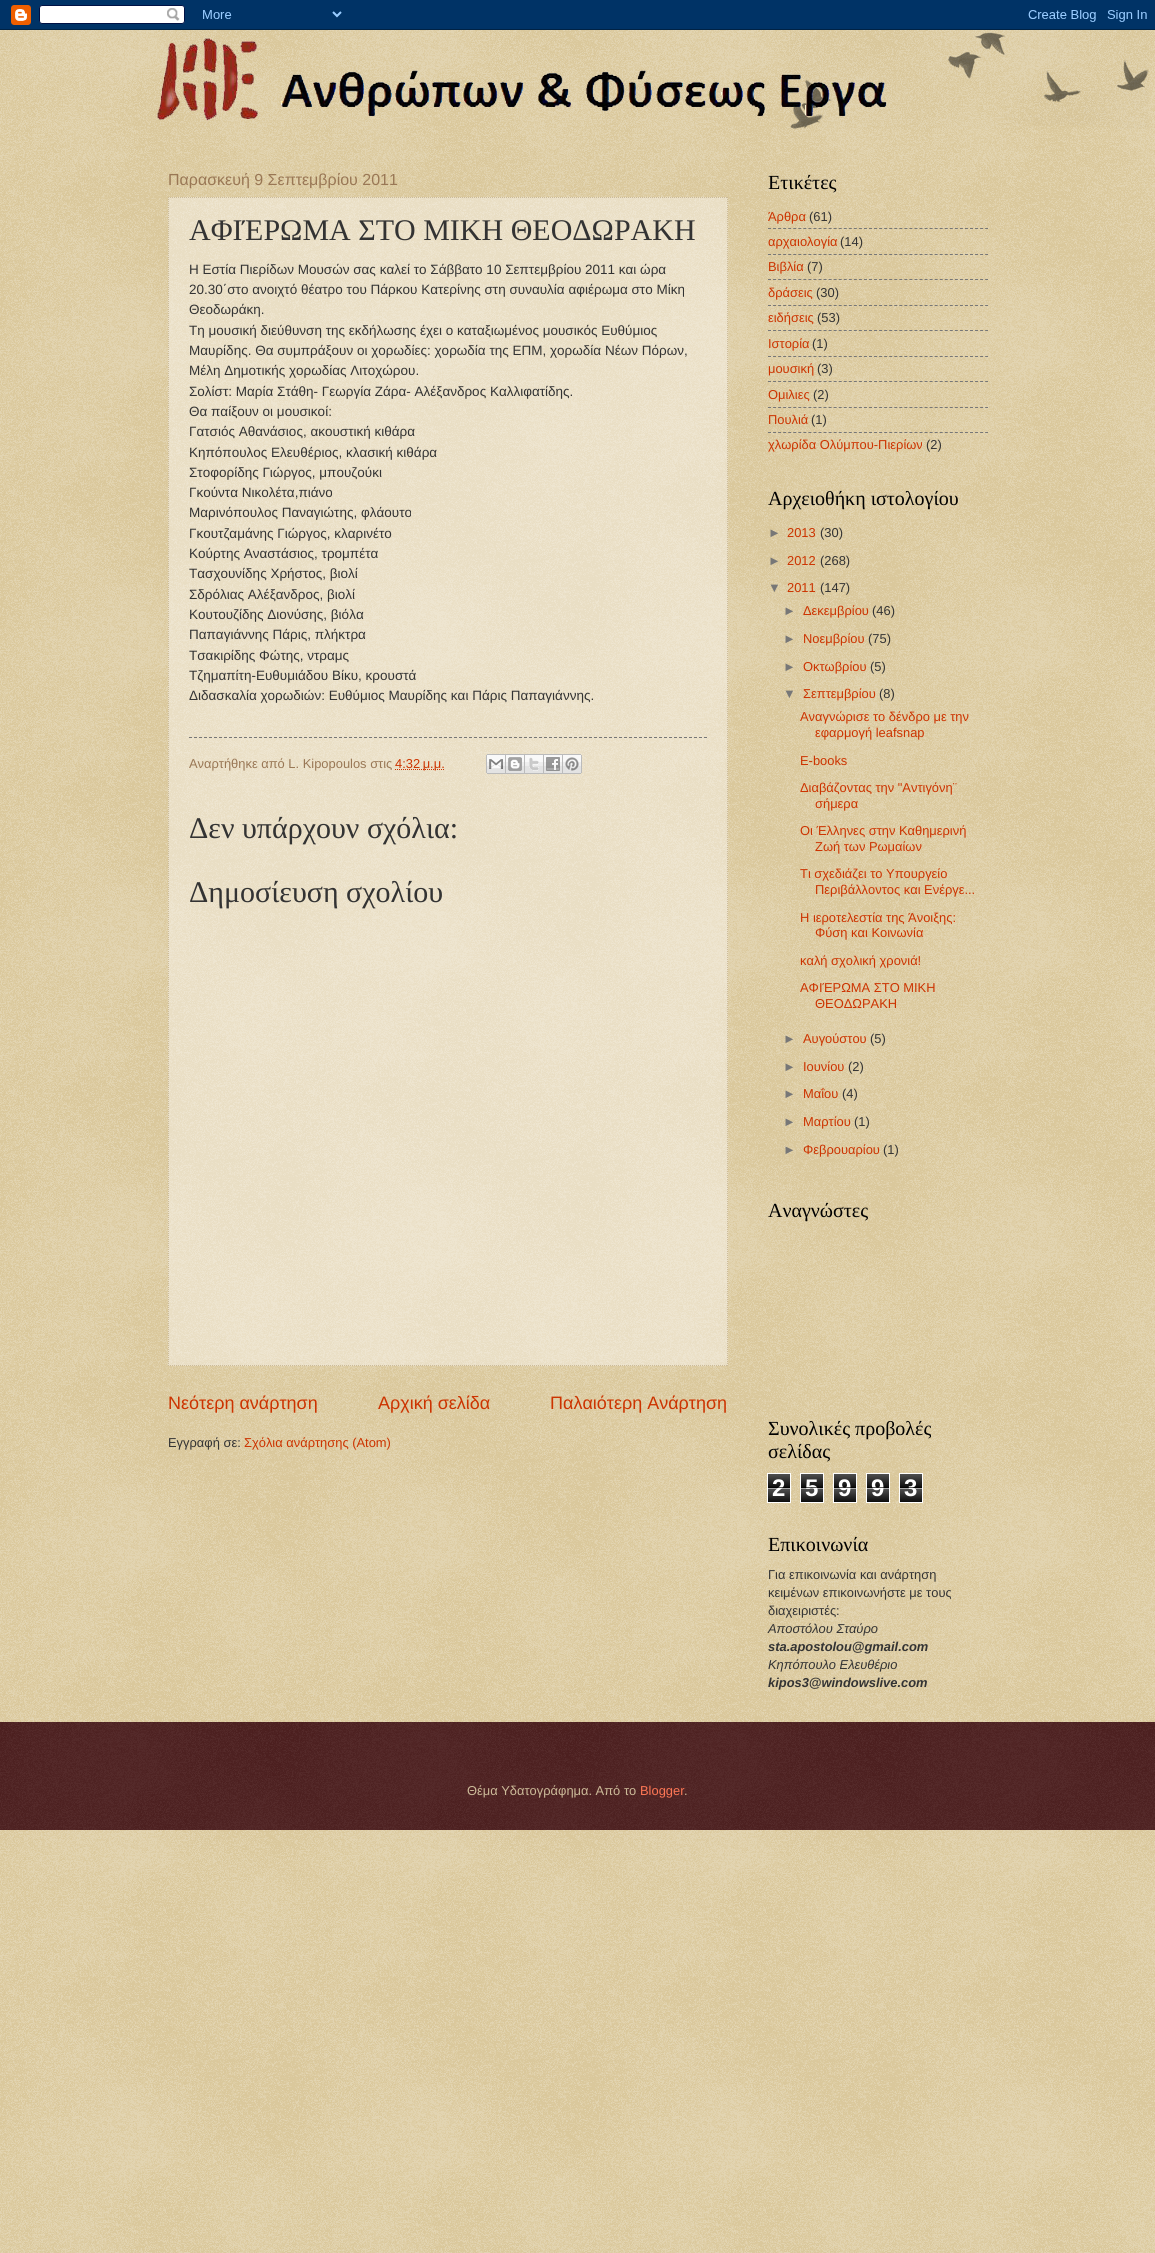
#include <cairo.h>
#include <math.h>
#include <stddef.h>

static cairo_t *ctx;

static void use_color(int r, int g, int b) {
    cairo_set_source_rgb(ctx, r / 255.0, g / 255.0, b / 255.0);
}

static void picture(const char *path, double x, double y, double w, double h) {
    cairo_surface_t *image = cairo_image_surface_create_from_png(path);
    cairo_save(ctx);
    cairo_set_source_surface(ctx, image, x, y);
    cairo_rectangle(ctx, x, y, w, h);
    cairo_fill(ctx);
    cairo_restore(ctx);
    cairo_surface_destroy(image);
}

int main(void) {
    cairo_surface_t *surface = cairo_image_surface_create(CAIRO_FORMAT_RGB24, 1155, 2253);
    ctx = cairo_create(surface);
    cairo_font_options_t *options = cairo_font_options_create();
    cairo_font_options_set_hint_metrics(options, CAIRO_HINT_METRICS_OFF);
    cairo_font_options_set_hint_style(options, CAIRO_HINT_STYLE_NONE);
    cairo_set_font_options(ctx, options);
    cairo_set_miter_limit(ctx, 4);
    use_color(192, 161, 84);
    cairo_paint(ctx);
    picture("img1.png", 0, 30, 1155, 2223);
    picture("img2.png", 0, 0, 1155, 30);
    picture("img3.png", 790, 32, 359, 97);
    picture("img4.png", 157, 38, 730, 83);
    cairo_select_font_face(ctx, "Liberation Sans", CAIRO_FONT_SLANT_NORMAL, CAIRO_FONT_WEIGHT_NORMAL);
    cairo_set_font_size(ctx, 16);
    use_color(153, 119, 85);
    cairo_move_to(ctx, 168, 185);
    cairo_show_text(ctx, "Παρασκευή 9 Σεπτεμβρίου 2011");
    cairo_set_source_rgba(ctx, 1, 1, 1, 0.4);
    cairo_rectangle(ctx, 168, 197, 560, 1169);
    cairo_fill(ctx);
    cairo_new_path(ctx);
    cairo_move_to(ctx, 168, 197.5);
    cairo_line_to(ctx, 728, 197.5);
    use_color(204, 187, 153);
    cairo_set_line_width(ctx, 1);
    cairo_set_dash(ctx, (double[]){1, 1}, 2, 0);
    cairo_stroke(ctx);
    cairo_new_path(ctx);
    cairo_move_to(ctx, 727.5, 197);
    cairo_line_to(ctx, 727.5, 1366);
    cairo_stroke(ctx);
    cairo_new_path(ctx);
    cairo_move_to(ctx, 168, 1365.5);
    cairo_line_to(ctx, 728, 1365.5);
    cairo_stroke(ctx);
    cairo_new_path(ctx);
    cairo_move_to(ctx, 168.5, 197);
    cairo_line_to(ctx, 168.5, 1366);
    cairo_stroke(ctx);
    cairo_select_font_face(ctx, "Liberation Serif", CAIRO_FONT_SLANT_NORMAL, CAIRO_FONT_WEIGHT_NORMAL);
    cairo_set_font_size(ctx, 30);
    use_color(51, 51, 51);
    cairo_move_to(ctx, 189, 240);
    cairo_show_text(ctx, "ΑΦΙΈΡΩΜΑ ΣΤΟ ΜΙΚΗ ΘΕΟΔΩΡΑΚΗ");
    cairo_select_font_face(ctx, "Liberation Sans", CAIRO_FONT_SLANT_NORMAL, CAIRO_FONT_WEIGHT_NORMAL);
    cairo_set_font_size(ctx, 13.5);
    cairo_move_to(ctx, 189, 274);
    cairo_show_text(ctx, "Η Εστία Πιερίδων Μουσών σας καλεί το Σάββατο 10 Σεπτεμβρίου 2011 και ώρα");
    cairo_move_to(ctx, 189, 294);
    cairo_show_text(ctx, "20.30΄στο ανοιχτό θέατρο του Πάρκου Κατερίνης στη συναυλία αφιέρωμα στο Μίκη");
    cairo_move_to(ctx, 189, 314);
    cairo_show_text(ctx, "Θεοδωράκη.");
    cairo_move_to(ctx, 189, 335);
    cairo_show_text(ctx, "Τη μουσική διεύθυνση της εκδήλωσης έχει ο καταξιωμένος μουσικός Ευθύμιος");
    cairo_move_to(ctx, 189, 355);
    cairo_show_text(ctx, "Μαυρίδης. Θα συμπράξουν οι χορωδίες: χορωδία της ΕΠΜ, χορωδία Νέων Πόρων,");
    cairo_move_to(ctx, 189, 375);
    cairo_show_text(ctx, "Μέλη Δημοτικής χορωδίας Λιτοχώρου.");
    cairo_move_to(ctx, 189, 396);
    cairo_show_text(ctx, "Σολίστ: Μαρία Στάθη- Γεωργία Ζάρα- Αλέξανδρος Καλλιφατίδης.");
    cairo_move_to(ctx, 189, 416);
    cairo_show_text(ctx, "Θα παίξουν οι μουσικοί:");
    cairo_move_to(ctx, 189, 436);
    cairo_show_text(ctx, "Γατσιός Αθανάσιος, ακουστική κιθάρα");
    cairo_move_to(ctx, 189, 457);
    cairo_show_text(ctx, "Κηπόπουλος Ελευθέριος, κλασική κιθάρα");
    cairo_move_to(ctx, 189, 477);
    cairo_show_text(ctx, "Στοφορίδης Γιώργος, μπουζούκι");
    cairo_move_to(ctx, 189, 497);
    cairo_show_text(ctx, "Γκούντα Νικολέτα,πιάνο");
    cairo_move_to(ctx, 189, 517);
    cairo_show_text(ctx, "Μαρινόπουλος Παναγιώτης, φλάουτο");
    cairo_move_to(ctx, 189, 538);
    cairo_show_text(ctx, "Γκουτζαμάνης Γιώργος, κλαρινέτο");
    cairo_move_to(ctx, 189, 558);
    cairo_show_text(ctx, "Κούρτης Αναστάσιος, τρομπέτα");
    cairo_move_to(ctx, 189, 578);
    cairo_show_text(ctx, "Τασχουνίδης Χρήστος, βιολί");
    cairo_move_to(ctx, 189, 599);
    cairo_show_text(ctx, "Σδρόλιας Αλέξανδρος, βιολί");
    cairo_move_to(ctx, 189, 619);
    cairo_show_text(ctx, "Κουτουζίδης Διονύσης, βιόλα");
    cairo_move_to(ctx, 189, 639);
    cairo_show_text(ctx, "Παπαγιάννης Πάρις, πλήκτρα");
    cairo_move_to(ctx, 189, 660);
    cairo_show_text(ctx, "Τσακιρίδης Φώτης, ντραμς");
    cairo_move_to(ctx, 189, 680);
    cairo_show_text(ctx, "Τζημαπίτη-Ευθυμιάδου Βίκυ, κρουστά");
    cairo_move_to(ctx, 189, 700);
    cairo_show_text(ctx, "Διδασκαλία χορωδιών: Ευθύμιος Μαυρίδης και Πάρις Παπαγιάννης.");
    cairo_new_path(ctx);
    cairo_move_to(ctx, 189, 737.5);
    cairo_line_to(ctx, 707, 737.5);
    use_color(119, 119, 119);
    cairo_set_dash(ctx, (double[]){3, 2}, 2, 0);
    cairo_stroke(ctx);
    cairo_set_font_size(ctx, 12.9);
    use_color(153, 119, 85);
    cairo_move_to(ctx, 189, 768);
    cairo_show_text(ctx, "Αναρτήθηκε από L. Kipopoulos στις");
    cairo_new_path(ctx);
    cairo_move_to(ctx, 395, 769.5);
    cairo_line_to(ctx, 444.5, 769.5);
    use_color(204, 51, 0);
    cairo_set_dash(ctx, (double[]){1, 1}, 2, 0);
    cairo_stroke(ctx);
    cairo_move_to(ctx, 395, 768);
    cairo_show_text(ctx, "4:32 μ.μ.");
    picture("img5.png", 486, 754, 20, 20);
    picture("img6.png", 506, 754, 19, 20);
    picture("img7.png", 525, 754, 19, 20);
    picture("img8.png", 544, 754, 19, 20);
    picture("img9.png", 563, 754, 19, 20);
    cairo_select_font_face(ctx, "Liberation Serif", CAIRO_FONT_SLANT_NORMAL, CAIRO_FONT_WEIGHT_NORMAL);
    cairo_set_font_size(ctx, 30);
    use_color(51, 51, 51);
    cairo_move_to(ctx, 189, 838);
    cairo_show_text(ctx, "Δεν υπάρχουν σχόλια:");
    cairo_move_to(ctx, 189, 902);
    cairo_show_text(ctx, "Δημοσίευση σχολίου");
    cairo_select_font_face(ctx, "Liberation Sans", CAIRO_FONT_SLANT_NORMAL, CAIRO_FONT_WEIGHT_NORMAL);
    cairo_set_font_size(ctx, 18);
    use_color(204, 51, 0);
    cairo_move_to(ctx, 168, 1409);
    cairo_show_text(ctx, "Νεότερη ανάρτηση");
    cairo_move_to(ctx, 378, 1409);
    cairo_show_text(ctx, "Αρχική σελίδα");
    cairo_move_to(ctx, 550, 1409);
    cairo_show_text(ctx, "Παλαιότερη Ανάρτηση");
    cairo_set_font_size(ctx, 12.9);
    use_color(51, 51, 51);
    cairo_move_to(ctx, 168, 1447);
    cairo_show_text(ctx, "Εγγραφή σε:");
    use_color(204, 51, 0);
    cairo_move_to(ctx, 244, 1447);
    cairo_show_text(ctx, "Σχόλια ανάρτησης (Atom)");
    cairo_select_font_face(ctx, "Liberation Serif", CAIRO_FONT_SLANT_NORMAL, CAIRO_FONT_WEIGHT_NORMAL);
    cairo_set_font_size(ctx, 20);
    use_color(0, 0, 0);
    cairo_move_to(ctx, 768, 189);
    cairo_show_text(ctx, "Ετικέτες");
    cairo_select_font_face(ctx, "Liberation Sans", CAIRO_FONT_SLANT_NORMAL, CAIRO_FONT_WEIGHT_NORMAL);
    cairo_set_font_size(ctx, 12.9);
    use_color(204, 51, 0);
    cairo_move_to(ctx, 768, 221);
    cairo_show_text(ctx, "Άρθρα");
    use_color(51, 51, 51);
    cairo_move_to(ctx, 809, 221);
    cairo_show_text(ctx, "(61)");
    cairo_new_path(ctx);
    cairo_move_to(ctx, 768, 228.5);
    cairo_line_to(ctx, 988, 228.5);
    use_color(119, 119, 119);
    cairo_set_dash(ctx, (double[]){3, 2.05}, 2, 0);
    cairo_stroke(ctx);
    use_color(204, 51, 0);
    cairo_move_to(ctx, 768, 246);
    cairo_show_text(ctx, "αρχαιολογία");
    use_color(51, 51, 51);
    cairo_move_to(ctx, 840, 246);
    cairo_show_text(ctx, "(14)");
    cairo_new_path(ctx);
    cairo_move_to(ctx, 768, 254.5);
    cairo_line_to(ctx, 988, 254.5);
    use_color(119, 119, 119);
    cairo_stroke(ctx);
    use_color(204, 51, 0);
    cairo_move_to(ctx, 768, 271);
    cairo_show_text(ctx, "Βιβλία");
    use_color(51, 51, 51);
    cairo_move_to(ctx, 807, 271);
    cairo_show_text(ctx, "(7)");
    cairo_new_path(ctx);
    cairo_move_to(ctx, 768, 279.5);
    cairo_line_to(ctx, 988, 279.5);
    use_color(119, 119, 119);
    cairo_stroke(ctx);
    use_color(204, 51, 0);
    cairo_move_to(ctx, 768, 297);
    cairo_show_text(ctx, "δράσεις");
    use_color(51, 51, 51);
    cairo_move_to(ctx, 816, 297);
    cairo_show_text(ctx, "(30)");
    cairo_new_path(ctx);
    cairo_move_to(ctx, 768, 305.5);
    cairo_line_to(ctx, 988, 305.5);
    use_color(119, 119, 119);
    cairo_stroke(ctx);
    use_color(204, 51, 0);
    cairo_move_to(ctx, 768, 322);
    cairo_show_text(ctx, "ειδήσεις");
    use_color(51, 51, 51);
    cairo_move_to(ctx, 817, 322);
    cairo_show_text(ctx, "(53)");
    cairo_new_path(ctx);
    cairo_move_to(ctx, 768, 330.5);
    cairo_line_to(ctx, 988, 330.5);
    use_color(119, 119, 119);
    cairo_stroke(ctx);
    use_color(204, 51, 0);
    cairo_move_to(ctx, 768, 348);
    cairo_show_text(ctx, "Ιστορία");
    use_color(51, 51, 51);
    cairo_move_to(ctx, 812, 348);
    cairo_show_text(ctx, "(1)");
    cairo_new_path(ctx);
    cairo_move_to(ctx, 768, 356.5);
    cairo_line_to(ctx, 988, 356.5);
    use_color(119, 119, 119);
    cairo_stroke(ctx);
    use_color(204, 51, 0);
    cairo_move_to(ctx, 768, 373);
    cairo_show_text(ctx, "μουσική");
    use_color(51, 51, 51);
    cairo_move_to(ctx, 817, 373);
    cairo_show_text(ctx, "(3)");
    cairo_new_path(ctx);
    cairo_move_to(ctx, 768, 381.5);
    cairo_line_to(ctx, 988, 381.5);
    use_color(119, 119, 119);
    cairo_stroke(ctx);
    use_color(204, 51, 0);
    cairo_move_to(ctx, 768, 399);
    cairo_show_text(ctx, "Ομιλιες");
    use_color(51, 51, 51);
    cairo_move_to(ctx, 813, 399);
    cairo_show_text(ctx, "(2)");
    cairo_new_path(ctx);
    cairo_move_to(ctx, 768, 407.5);
    cairo_line_to(ctx, 988, 407.5);
    use_color(119, 119, 119);
    cairo_stroke(ctx);
    use_color(204, 51, 0);
    cairo_move_to(ctx, 768, 424);
    cairo_show_text(ctx, "Πουλιά");
    use_color(51, 51, 51);
    cairo_move_to(ctx, 811, 424);
    cairo_show_text(ctx, "(1)");
    cairo_new_path(ctx);
    cairo_move_to(ctx, 768, 432.5);
    cairo_line_to(ctx, 988, 432.5);
    use_color(119, 119, 119);
    cairo_stroke(ctx);
    use_color(204, 51, 0);
    cairo_move_to(ctx, 768, 449);
    cairo_show_text(ctx, "χλωρίδα Ολύμπου-Πιερίων");
    use_color(51, 51, 51);
    cairo_move_to(ctx, 926, 449);
    cairo_show_text(ctx, "(2)");
    cairo_select_font_face(ctx, "Liberation Serif", CAIRO_FONT_SLANT_NORMAL, CAIRO_FONT_WEIGHT_NORMAL);
    cairo_set_font_size(ctx, 20);
    use_color(0, 0, 0);
    cairo_move_to(ctx, 768, 505);
    cairo_show_text(ctx, "Αρχειοθήκη ιστολογίου");
    cairo_select_font_face(ctx, "Liberation Sans", CAIRO_FONT_SLANT_NORMAL, CAIRO_FONT_WEIGHT_NORMAL);
    cairo_set_font_size(ctx, 12.9);
    use_color(119, 119, 119);
    cairo_move_to(ctx, 768, 537);
    cairo_show_text(ctx, "►");
    use_color(204, 51, 0);
    cairo_move_to(ctx, 787, 537);
    cairo_show_text(ctx, "2013");
    use_color(51, 51, 51);
    cairo_move_to(ctx, 820, 537);
    cairo_show_text(ctx, "(30)");
    use_color(119, 119, 119);
    cairo_move_to(ctx, 768, 565);
    cairo_show_text(ctx, "►");
    use_color(204, 51, 0);
    cairo_move_to(ctx, 787, 565);
    cairo_show_text(ctx, "2012");
    use_color(51, 51, 51);
    cairo_move_to(ctx, 820, 565);
    cairo_show_text(ctx, "(268)");
    use_color(119, 119, 119);
    cairo_move_to(ctx, 768, 592);
    cairo_show_text(ctx, "▼");
    use_color(204, 51, 0);
    cairo_move_to(ctx, 787, 592);
    cairo_show_text(ctx, "2011");
    use_color(51, 51, 51);
    cairo_move_to(ctx, 820, 592);
    cairo_show_text(ctx, "(147)");
    use_color(119, 119, 119);
    cairo_move_to(ctx, 783, 615);
    cairo_show_text(ctx, "►");
    use_color(204, 51, 0);
    cairo_move_to(ctx, 803, 615);
    cairo_show_text(ctx, "Δεκεμβρίου");
    use_color(51, 51, 51);
    cairo_move_to(ctx, 872, 615);
    cairo_show_text(ctx, "(46)");
    use_color(119, 119, 119);
    cairo_move_to(ctx, 783, 643);
    cairo_show_text(ctx, "►");
    use_color(204, 51, 0);
    cairo_move_to(ctx, 803, 643);
    cairo_show_text(ctx, "Νοεμβρίου");
    use_color(51, 51, 51);
    cairo_move_to(ctx, 868, 643);
    cairo_show_text(ctx, "(75)");
    use_color(119, 119, 119);
    cairo_move_to(ctx, 783, 671);
    cairo_show_text(ctx, "►");
    use_color(204, 51, 0);
    cairo_move_to(ctx, 803, 671);
    cairo_show_text(ctx, "Οκτωβρίου");
    use_color(51, 51, 51);
    cairo_move_to(ctx, 870, 671);
    cairo_show_text(ctx, "(5)");
    use_color(119, 119, 119);
    cairo_move_to(ctx, 783, 698);
    cairo_show_text(ctx, "▼");
    use_color(204, 51, 0);
    cairo_move_to(ctx, 803, 698);
    cairo_show_text(ctx, "Σεπτεμβρίου");
    use_color(51, 51, 51);
    cairo_move_to(ctx, 879, 698);
    cairo_show_text(ctx, "(8)");
    use_color(204, 51, 0);
    cairo_move_to(ctx, 800, 721);
    cairo_show_text(ctx, "Αναγνώρισε το δένδρο με την");
    cairo_move_to(ctx, 815, 737);
    cairo_show_text(ctx, "εφαρμογή leafsnap");
    cairo_move_to(ctx, 800, 765);
    cairo_show_text(ctx, "Ε-books");
    cairo_move_to(ctx, 800, 792);
    cairo_show_text(ctx, "Διαβάζοντας την \"Αντιγόνη¨");
    cairo_move_to(ctx, 815, 808);
    cairo_show_text(ctx, "σήμερα");
    cairo_move_to(ctx, 800, 835);
    cairo_show_text(ctx, "Οι Έλληνες στην Καθημερινή");
    cairo_move_to(ctx, 815, 851);
    cairo_show_text(ctx, "Ζωή των Ρωμαίων");
    cairo_move_to(ctx, 800, 878);
    cairo_show_text(ctx, "Τι σχεδιάζει το Υπουργείο");
    cairo_move_to(ctx, 815, 894);
    cairo_show_text(ctx, "Περιβάλλοντος και Ενέργε...");
    cairo_move_to(ctx, 800, 922);
    cairo_show_text(ctx, "Η ιεροτελεστία της Άνοιξης:");
    cairo_move_to(ctx, 815, 937);
    cairo_show_text(ctx, "Φύση και Κοινωνία");
    cairo_move_to(ctx, 800, 965);
    cairo_show_text(ctx, "καλή σχολική χρονιά!");
    cairo_move_to(ctx, 800, 992);
    cairo_show_text(ctx, "ΑΦΙΈΡΩΜΑ ΣΤΟ ΜΙΚΗ");
    cairo_move_to(ctx, 815, 1008);
    cairo_show_text(ctx, "ΘΕΟΔΩΡΑΚΗ");
    use_color(119, 119, 119);
    cairo_move_to(ctx, 783, 1043);
    cairo_show_text(ctx, "►");
    use_color(204, 51, 0);
    cairo_move_to(ctx, 803, 1043);
    cairo_show_text(ctx, "Αυγούστου");
    use_color(51, 51, 51);
    cairo_move_to(ctx, 870, 1043);
    cairo_show_text(ctx, "(5)");
    use_color(119, 119, 119);
    cairo_move_to(ctx, 783, 1071);
    cairo_show_text(ctx, "►");
    use_color(204, 51, 0);
    cairo_move_to(ctx, 803, 1071);
    cairo_show_text(ctx, "Ιουνίου");
    use_color(51, 51, 51);
    cairo_move_to(ctx, 848, 1071);
    cairo_show_text(ctx, "(2)");
    use_color(119, 119, 119);
    cairo_move_to(ctx, 783, 1098);
    cairo_show_text(ctx, "►");
    use_color(204, 51, 0);
    cairo_move_to(ctx, 803, 1098);
    cairo_show_text(ctx, "Μαΐου");
    use_color(51, 51, 51);
    cairo_move_to(ctx, 842, 1098);
    cairo_show_text(ctx, "(4)");
    use_color(119, 119, 119);
    cairo_move_to(ctx, 783, 1126);
    cairo_show_text(ctx, "►");
    use_color(204, 51, 0);
    cairo_move_to(ctx, 803, 1126);
    cairo_show_text(ctx, "Μαρτίου");
    use_color(51, 51, 51);
    cairo_move_to(ctx, 854, 1126);
    cairo_show_text(ctx, "(1)");
    use_color(119, 119, 119);
    cairo_move_to(ctx, 783, 1154);
    cairo_show_text(ctx, "►");
    use_color(204, 51, 0);
    cairo_move_to(ctx, 803, 1154);
    cairo_show_text(ctx, "Φεβρουαρίου");
    use_color(51, 51, 51);
    cairo_move_to(ctx, 883, 1154);
    cairo_show_text(ctx, "(1)");
    cairo_select_font_face(ctx, "Liberation Serif", CAIRO_FONT_SLANT_NORMAL, CAIRO_FONT_WEIGHT_NORMAL);
    cairo_set_font_size(ctx, 20);
    use_color(0, 0, 0);
    cairo_move_to(ctx, 768, 1217);
    cairo_show_text(ctx, "Αναγνώστες");
    cairo_move_to(ctx, 768, 1435);
    cairo_show_text(ctx, "Συνολικές προβολές");
    cairo_move_to(ctx, 768, 1458);
    cairo_show_text(ctx, "σελίδας");
    picture("img10.png", 768, 1474, 22, 28);
    cairo_rectangle(ctx, 767.5, 1473.5, 23, 29);
    use_color(255, 255, 255);
    cairo_set_dash(ctx, NULL, 0, 0);
    cairo_stroke(ctx);
    cairo_select_font_face(ctx, "Liberation Sans", CAIRO_FONT_SLANT_NORMAL, CAIRO_FONT_WEIGHT_BOLD);
    cairo_set_font_size(ctx, 24);
    cairo_move_to(ctx, 772, 1496);
    cairo_show_text(ctx, "2");
    cairo_set_source_rgba(ctx, 0, 0, 0, 0.65);
    cairo_rectangle(ctx, 768, 1487, 22, 1);
    cairo_fill(ctx);
    cairo_set_source_rgba(ctx, 1, 1, 1, 0.65);
    cairo_rectangle(ctx, 768, 1488, 22, 1);
    cairo_fill(ctx);
    picture("img10.png", 801, 1474, 22, 28);
    cairo_rectangle(ctx, 800.5, 1473.5, 23, 29);
    use_color(255, 255, 255);
    cairo_stroke(ctx);
    cairo_move_to(ctx, 805, 1496);
    cairo_show_text(ctx, "5");
    cairo_set_source_rgba(ctx, 0, 0, 0, 0.65);
    cairo_rectangle(ctx, 801, 1487, 22, 1);
    cairo_fill(ctx);
    cairo_set_source_rgba(ctx, 1, 1, 1, 0.65);
    cairo_rectangle(ctx, 801, 1488, 22, 1);
    cairo_fill(ctx);
    picture("img10.png", 834, 1474, 22, 28);
    cairo_rectangle(ctx, 833.5, 1473.5, 23, 29);
    use_color(255, 255, 255);
    cairo_stroke(ctx);
    cairo_move_to(ctx, 838, 1496);
    cairo_show_text(ctx, "9");
    cairo_set_source_rgba(ctx, 0, 0, 0, 0.65);
    cairo_rectangle(ctx, 834, 1487, 22, 1);
    cairo_fill(ctx);
    cairo_set_source_rgba(ctx, 1, 1, 1, 0.65);
    cairo_rectangle(ctx, 834, 1488, 22, 1);
    cairo_fill(ctx);
    picture("img10.png", 867, 1474, 22, 28);
    cairo_rectangle(ctx, 866.5, 1473.5, 23, 29);
    use_color(255, 255, 255);
    cairo_stroke(ctx);
    cairo_move_to(ctx, 871, 1496);
    cairo_show_text(ctx, "9");
    cairo_set_source_rgba(ctx, 0, 0, 0, 0.65);
    cairo_rectangle(ctx, 867, 1487, 22, 1);
    cairo_fill(ctx);
    cairo_set_source_rgba(ctx, 1, 1, 1, 0.65);
    cairo_rectangle(ctx, 867, 1488, 22, 1);
    cairo_fill(ctx);
    picture("img10.png", 900, 1474, 22, 28);
    cairo_rectangle(ctx, 899.5, 1473.5, 23, 29);
    use_color(255, 255, 255);
    cairo_stroke(ctx);
    cairo_move_to(ctx, 904, 1496);
    cairo_show_text(ctx, "3");
    cairo_set_source_rgba(ctx, 0, 0, 0, 0.65);
    cairo_rectangle(ctx, 900, 1487, 22, 1);
    cairo_fill(ctx);
    cairo_set_source_rgba(ctx, 1, 1, 1, 0.65);
    cairo_rectangle(ctx, 900, 1488, 22, 1);
    cairo_fill(ctx);
    cairo_select_font_face(ctx, "Liberation Serif", CAIRO_FONT_SLANT_NORMAL, CAIRO_FONT_WEIGHT_NORMAL);
    cairo_set_font_size(ctx, 20);
    use_color(0, 0, 0);
    cairo_move_to(ctx, 768, 1551);
    cairo_show_text(ctx, "Επικοινωνία");
    cairo_select_font_face(ctx, "Liberation Sans", CAIRO_FONT_SLANT_NORMAL, CAIRO_FONT_WEIGHT_NORMAL);
    cairo_set_font_size(ctx, 12.9);
    use_color(51, 51, 51);
    cairo_move_to(ctx, 768, 1579);
    cairo_show_text(ctx, "Για επικοινωνία και ανάρτηση");
    cairo_move_to(ctx, 768, 1597);
    cairo_show_text(ctx, "κειμένων επικοινωνήστε με τους");
    cairo_move_to(ctx, 768, 1615);
    cairo_show_text(ctx, "διαχειριστές:");
    cairo_select_font_face(ctx, "Liberation Sans", CAIRO_FONT_SLANT_ITALIC, CAIRO_FONT_WEIGHT_NORMAL);
    cairo_move_to(ctx, 768, 1633);
    cairo_show_text(ctx, "Αποστόλου Σταύρο");
    cairo_select_font_face(ctx, "Liberation Sans", CAIRO_FONT_SLANT_ITALIC, CAIRO_FONT_WEIGHT_BOLD);
    cairo_move_to(ctx, 768, 1651);
    cairo_show_text(ctx, "sta.apostolou@gmail.com");
    cairo_select_font_face(ctx, "Liberation Sans", CAIRO_FONT_SLANT_ITALIC, CAIRO_FONT_WEIGHT_NORMAL);
    cairo_move_to(ctx, 768, 1669);
    cairo_show_text(ctx, "Κηπόπουλο Ελευθέριο");
    cairo_select_font_face(ctx, "Liberation Sans", CAIRO_FONT_SLANT_ITALIC, CAIRO_FONT_WEIGHT_BOLD);
    cairo_move_to(ctx, 768, 1687);
    cairo_show_text(ctx, "kipos3@windowslive.com");
    use_color(51, 0, 0);
    cairo_rectangle(ctx, 0, 1722, 1155, 108);
    cairo_fill(ctx);
    picture("img11.png", 0, 1722, 1155, 108);
    cairo_select_font_face(ctx, "Liberation Sans", CAIRO_FONT_SLANT_NORMAL, CAIRO_FONT_WEIGHT_NORMAL);
    use_color(204, 187, 153);
    cairo_move_to(ctx, 467, 1795);
    cairo_show_text(ctx, "Θέμα Υδατογράφημα. Από το");
    use_color(255, 119, 85);
    cairo_move_to(ctx, 640, 1795);
    cairo_show_text(ctx, "Blogger");
    use_color(204, 187, 153);
    cairo_move_to(ctx, 684, 1795);
    cairo_show_text(ctx, ".");
    cairo_surface_write_to_png(surface, "result.png");
    cairo_font_options_destroy(options);
    cairo_destroy(ctx);
    cairo_surface_destroy(surface);
    return 0;
}
